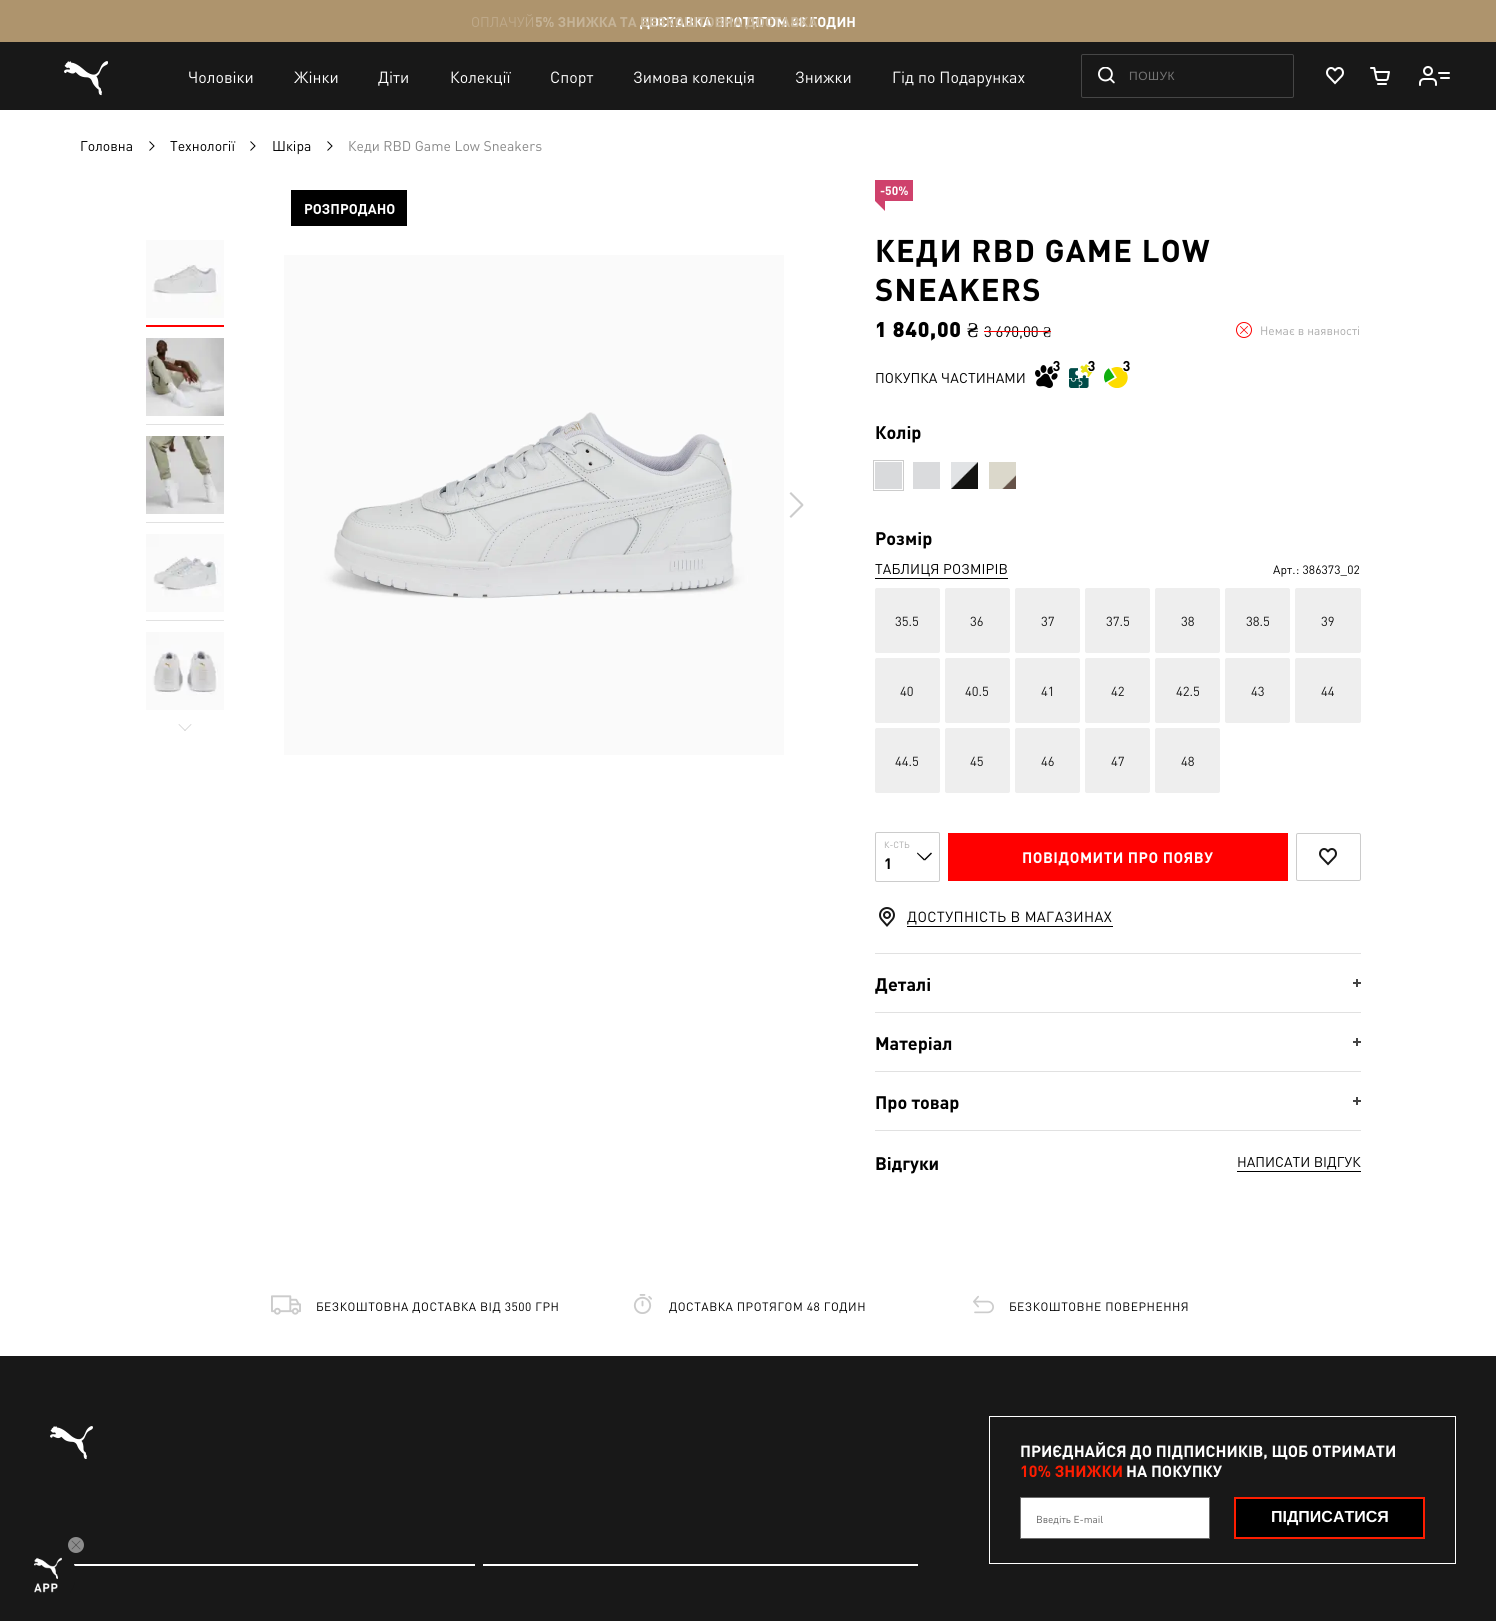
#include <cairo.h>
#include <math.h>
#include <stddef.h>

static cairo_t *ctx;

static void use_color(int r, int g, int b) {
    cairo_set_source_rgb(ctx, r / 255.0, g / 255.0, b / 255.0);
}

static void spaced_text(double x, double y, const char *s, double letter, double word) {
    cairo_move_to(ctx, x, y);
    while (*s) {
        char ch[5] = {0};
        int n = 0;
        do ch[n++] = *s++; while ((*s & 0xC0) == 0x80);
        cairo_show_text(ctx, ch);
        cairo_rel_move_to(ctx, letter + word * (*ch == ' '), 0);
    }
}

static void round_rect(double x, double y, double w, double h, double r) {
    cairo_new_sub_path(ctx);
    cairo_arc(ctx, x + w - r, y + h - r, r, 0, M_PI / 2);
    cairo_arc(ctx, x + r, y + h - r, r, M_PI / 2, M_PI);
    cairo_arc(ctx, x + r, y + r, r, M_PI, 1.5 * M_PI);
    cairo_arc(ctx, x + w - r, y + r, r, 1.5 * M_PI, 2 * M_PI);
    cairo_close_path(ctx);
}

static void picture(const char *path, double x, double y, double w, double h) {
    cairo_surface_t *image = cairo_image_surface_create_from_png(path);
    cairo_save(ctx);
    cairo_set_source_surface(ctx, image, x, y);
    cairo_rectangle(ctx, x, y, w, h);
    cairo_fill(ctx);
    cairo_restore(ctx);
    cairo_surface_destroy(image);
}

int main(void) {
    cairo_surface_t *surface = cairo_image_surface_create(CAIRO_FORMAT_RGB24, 1496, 1621);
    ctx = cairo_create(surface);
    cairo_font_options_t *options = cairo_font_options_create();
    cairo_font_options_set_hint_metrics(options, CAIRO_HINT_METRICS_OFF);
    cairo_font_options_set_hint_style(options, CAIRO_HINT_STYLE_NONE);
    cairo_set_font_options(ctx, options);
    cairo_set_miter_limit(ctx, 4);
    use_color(255, 255, 255);
    cairo_paint(ctx);
    use_color(174, 148, 109);
    cairo_rectangle(ctx, 0, 0, 1496, 42);
    cairo_fill(ctx);
    cairo_select_font_face(ctx, "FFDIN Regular", CAIRO_FONT_SLANT_NORMAL, CAIRO_FONT_WEIGHT_NORMAL);
    cairo_set_font_size(ctx, 14);
    use_color(190, 169, 138);
    cairo_move_to(ctx, 471, 27);
    cairo_show_text(ctx, "ОПЛАЧУЙ");
    cairo_select_font_face(ctx, "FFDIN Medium", CAIRO_FONT_SLANT_NORMAL, CAIRO_FONT_WEIGHT_BOLD);
    use_color(255, 255, 255);
    cairo_move_to(ctx, 640, 27);
    cairo_show_text(ctx, "ДОСТАВКА ПРОТЯГОМ 48 ГОДИН");
    use_color(197, 179, 151);
    cairo_move_to(ctx, 535, 27);
    cairo_show_text(ctx, "5% ЗНИЖКА ТА БЕЗКОШТОВНА ДОСТАВКА");
    use_color(24, 24, 24);
    cairo_rectangle(ctx, 0, 42, 1496, 68);
    cairo_fill(ctx);
    picture("img1.png", 64, 61, 44, 35);
    cairo_select_font_face(ctx, "FFDIN Regular", CAIRO_FONT_SLANT_NORMAL, CAIRO_FONT_WEIGHT_NORMAL);
    cairo_set_font_size(ctx, 16);
    use_color(255, 255, 255);
    cairo_move_to(ctx, 188, 83);
    cairo_show_text(ctx, "Чоловіки");
    cairo_move_to(ctx, 294, 83);
    cairo_show_text(ctx, "Жінки");
    cairo_move_to(ctx, 378, 83);
    cairo_show_text(ctx, "Діти");
    cairo_move_to(ctx, 450, 83);
    cairo_show_text(ctx, "Колекції");
    cairo_move_to(ctx, 550, 83);
    cairo_show_text(ctx, "Спорт");
    cairo_move_to(ctx, 633, 83);
    cairo_show_text(ctx, "Зимова колекція");
    cairo_move_to(ctx, 795, 83);
    cairo_show_text(ctx, "Знижки");
    cairo_move_to(ctx, 892, 83);
    cairo_show_text(ctx, "Гід по Подарунках");
    round_rect(1081.5, 54.5, 212, 43, 1.5);
    use_color(70, 70, 70);
    cairo_set_line_width(ctx, 1);
    cairo_stroke(ctx);
    picture("img2.png", 1098, 67, 17, 17);
    cairo_select_font_face(ctx, "Liberation Sans", CAIRO_FONT_SLANT_NORMAL, CAIRO_FONT_WEIGHT_NORMAL);
    cairo_set_font_size(ctx, 12);
    use_color(116, 116, 116);
    spaced_text(1129, 80, "ПОШУК", 0.5, 0);
    picture("img3.png", 1326, 67, 18, 18);
    picture("img4.png", 1370, 67, 20, 18);
    picture("img5.png", 1419, 66, 31, 20);
    cairo_select_font_face(ctx, "FFDIN Regular", CAIRO_FONT_SLANT_NORMAL, CAIRO_FONT_WEIGHT_NORMAL);
    cairo_set_font_size(ctx, 14);
    use_color(0, 0, 0);
    cairo_move_to(ctx, 80, 151);
    cairo_show_text(ctx, "Головна");
    cairo_new_path(ctx);
    cairo_move_to(ctx, 149.5, 150.5);
    cairo_line_to(ctx, 154, 146);
    cairo_line_to(ctx, 149.5, 141.5);
    cairo_stroke(ctx);
    cairo_move_to(ctx, 170, 151);
    cairo_show_text(ctx, "Технології");
    cairo_new_path(ctx);
    cairo_move_to(ctx, 250.5, 150.5);
    cairo_line_to(ctx, 255, 146);
    cairo_line_to(ctx, 250.5, 141.5);
    cairo_stroke(ctx);
    cairo_move_to(ctx, 272, 151);
    cairo_show_text(ctx, "Шкіра");
    cairo_new_path(ctx);
    cairo_move_to(ctx, 327.5, 150.5);
    cairo_line_to(ctx, 332, 146);
    cairo_line_to(ctx, 327.5, 141.5);
    cairo_stroke(ctx);
    use_color(136, 136, 136);
    cairo_move_to(ctx, 348, 151);
    cairo_show_text(ctx, "Кеди RBD Game Low Sneakers");
    use_color(0, 0, 0);
    cairo_rectangle(ctx, 291, 190, 116, 36);
    cairo_fill(ctx);
    cairo_select_font_face(ctx, "FFDIN Medium", CAIRO_FONT_SLANT_NORMAL, CAIRO_FONT_WEIGHT_BOLD);
    use_color(255, 255, 255);
    cairo_move_to(ctx, 304, 214);
    cairo_show_text(ctx, "РОЗПРОДАНО");
    picture("img6.png", 146, 240, 78, 78);
    use_color(255, 0, 0);
    cairo_rectangle(ctx, 146, 325, 78, 2);
    cairo_fill(ctx);
    picture("img7.png", 146, 338, 78, 78);
    use_color(225, 225, 225);
    cairo_rectangle(ctx, 146, 424, 78, 1);
    cairo_fill(ctx);
    picture("img8.png", 146, 436, 78, 78);
    cairo_rectangle(ctx, 146, 522, 78, 1);
    cairo_fill(ctx);
    picture("img9.png", 146, 534, 78, 78);
    cairo_rectangle(ctx, 146, 620, 78, 1);
    cairo_fill(ctx);
    picture("img10.png", 146, 632, 78, 78);
    use_color(204, 204, 204);
    cairo_new_path(ctx);
    cairo_move_to(ctx, 178.5, 724.5);
    cairo_line_to(ctx, 179, 724);
    cairo_line_to(ctx, 185.5, 730.5);
    cairo_line_to(ctx, 185, 731);
    cairo_close_path(ctx);
    cairo_fill(ctx);
    cairo_new_path(ctx);
    cairo_move_to(ctx, 185, 731);
    cairo_line_to(ctx, 184.5, 730.5);
    cairo_line_to(ctx, 191, 724);
    cairo_line_to(ctx, 191.5, 724.5);
    cairo_close_path(ctx);
    cairo_fill(ctx);
    picture("img11.png", 284, 255, 500, 500);
    cairo_new_path(ctx);
    cairo_move_to(ctx, 791, 518);
    cairo_line_to(ctx, 789.5, 516.5);
    cairo_line_to(ctx, 802, 504);
    cairo_line_to(ctx, 803.5, 505.5);
    cairo_close_path(ctx);
    cairo_fill(ctx);
    cairo_new_path(ctx);
    cairo_move_to(ctx, 803.5, 504.5);
    cairo_line_to(ctx, 802, 506);
    cairo_line_to(ctx, 789.5, 493.5);
    cairo_line_to(ctx, 791, 492);
    cairo_close_path(ctx);
    cairo_fill(ctx);
    use_color(207, 65, 108);
    cairo_rectangle(ctx, 875, 180, 38, 21);
    cairo_fill(ctx);
    cairo_set_font_size(ctx, 12);
    use_color(255, 255, 255);
    cairo_move_to(ctx, 880, 195);
    cairo_show_text(ctx, "-50%");
    use_color(207, 65, 108);
    cairo_new_path(ctx);
    cairo_move_to(ctx, 885, 201);
    cairo_line_to(ctx, 885, 211);
    cairo_line_to(ctx, 875, 201);
    cairo_close_path(ctx);
    cairo_fill(ctx);
    cairo_set_font_size(ctx, 31);
    use_color(0, 0, 0);
    spaced_text(875, 262, "КЕДИ RBD GAME LOW", 1.25, 0);
    spaced_text(875, 301, "SNEAKERS", 1.25, 0);
    cairo_select_font_face(ctx, "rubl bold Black", CAIRO_FONT_SLANT_NORMAL, CAIRO_FONT_WEIGHT_NORMAL);
    cairo_set_font_size(ctx, 21);
    spaced_text(875, 337, "1 840,00", 0.75, 0);
    cairo_select_font_face(ctx, "Liberation Serif", CAIRO_FONT_SLANT_NORMAL, CAIRO_FONT_WEIGHT_NORMAL);
    spaced_text(967, 337, "₴", 0.75, 0);
    cairo_select_font_face(ctx, "FFDIN Regular", CAIRO_FONT_SLANT_NORMAL, CAIRO_FONT_WEIGHT_NORMAL);
    cairo_set_font_size(ctx, 15);
    cairo_move_to(ctx, 984, 337);
    cairo_show_text(ctx, "3 690,00");
    cairo_select_font_face(ctx, "Liberation Serif", CAIRO_FONT_SLANT_NORMAL, CAIRO_FONT_WEIGHT_NORMAL);
    cairo_move_to(ctx, 1043, 337);
    cairo_show_text(ctx, "₴");
    use_color(255, 0, 0);
    cairo_rectangle(ctx, 984, 331, 67, 1);
    cairo_fill(ctx);
    cairo_arc(ctx, 1244, 330, 7.5, 0, 2 * M_PI);
    cairo_stroke(ctx);
    picture("img12.png", 1240, 326, 8, 8);
    cairo_select_font_face(ctx, "FFDIN Regular", CAIRO_FONT_SLANT_NORMAL, CAIRO_FONT_WEIGHT_NORMAL);
    cairo_set_font_size(ctx, 12);
    use_color(170, 170, 170);
    cairo_move_to(ctx, 1260, 335);
    cairo_show_text(ctx, "Немає в наявності");
    cairo_set_font_size(ctx, 14);
    use_color(0, 0, 0);
    spaced_text(875, 383, "ПОКУПКА ЧАСТИНАМИ", 0.1, 0);
    picture("img13.png", 1035, 360, 25, 28);
    picture("img14.png", 1069, 360, 26, 28);
    picture("img15.png", 1104, 360, 26, 28);
    cairo_select_font_face(ctx, "FFDIN Medium", CAIRO_FONT_SLANT_NORMAL, CAIRO_FONT_WEIGHT_BOLD);
    cairo_set_font_size(ctx, 18);
    cairo_move_to(ctx, 875, 439);
    cairo_show_text(ctx, "Колір");
    cairo_rectangle(ctx, 873.5, 460.5, 30, 30);
    use_color(204, 204, 204);
    cairo_stroke(ctx);
    use_color(217, 218, 220);
    cairo_rectangle(ctx, 875, 462, 27, 27);
    cairo_fill(ctx);
    use_color(218, 219, 221);
    cairo_rectangle(ctx, 913, 462, 27, 27);
    cairo_fill(ctx);
    picture("img16.png", 951, 462, 27, 27);
    picture("img17.png", 989, 462, 27, 27);
    use_color(0, 0, 0);
    cairo_move_to(ctx, 875, 545);
    cairo_show_text(ctx, "Розмір");
    cairo_select_font_face(ctx, "FFDIN Regular", CAIRO_FONT_SLANT_NORMAL, CAIRO_FONT_WEIGHT_NORMAL);
    cairo_set_font_size(ctx, 14);
    spaced_text(875, 574, "ТАБЛИЦЯ РОЗМІРІВ", 0.1, 0);
    cairo_rectangle(ctx, 875, 578, 133, 1);
    cairo_fill(ctx);
    cairo_set_font_size(ctx, 12);
    spaced_text(1273, 574, "Арт.: 386373_02", 0.1, 0);
    use_color(238, 238, 238);
    round_rect(875.5, 588.5, 64, 64, 1.5);
    cairo_fill_preserve(ctx);
    cairo_stroke(ctx);
    cairo_set_font_size(ctx, 13);
    use_color(24, 24, 24);
    cairo_move_to(ctx, 895, 626);
    cairo_show_text(ctx, "35.5");
    use_color(238, 238, 238);
    round_rect(945.5, 588.5, 64, 64, 1.5);
    cairo_fill_preserve(ctx);
    cairo_stroke(ctx);
    use_color(24, 24, 24);
    cairo_move_to(ctx, 970, 626);
    cairo_show_text(ctx, "36");
    use_color(238, 238, 238);
    round_rect(1015.5, 588.5, 64, 64, 1.5);
    cairo_fill_preserve(ctx);
    cairo_stroke(ctx);
    use_color(24, 24, 24);
    cairo_move_to(ctx, 1041, 626);
    cairo_show_text(ctx, "37");
    use_color(238, 238, 238);
    round_rect(1085.5, 588.5, 64, 64, 1.5);
    cairo_fill_preserve(ctx);
    cairo_stroke(ctx);
    use_color(24, 24, 24);
    cairo_move_to(ctx, 1106, 626);
    cairo_show_text(ctx, "37.5");
    use_color(238, 238, 238);
    round_rect(1155.5, 588.5, 64, 64, 1.5);
    cairo_fill_preserve(ctx);
    cairo_stroke(ctx);
    use_color(24, 24, 24);
    cairo_move_to(ctx, 1181, 626);
    cairo_show_text(ctx, "38");
    use_color(238, 238, 238);
    round_rect(1225.5, 588.5, 64, 64, 1.5);
    cairo_fill_preserve(ctx);
    cairo_stroke(ctx);
    use_color(24, 24, 24);
    cairo_move_to(ctx, 1246, 626);
    cairo_show_text(ctx, "38.5");
    use_color(238, 238, 238);
    round_rect(1295.5, 588.5, 65, 64, 1.5);
    cairo_fill_preserve(ctx);
    cairo_stroke(ctx);
    use_color(24, 24, 24);
    cairo_move_to(ctx, 1321, 626);
    cairo_show_text(ctx, "39");
    use_color(238, 238, 238);
    round_rect(875.5, 658.5, 64, 64, 1.5);
    cairo_fill_preserve(ctx);
    cairo_stroke(ctx);
    use_color(24, 24, 24);
    cairo_move_to(ctx, 900, 696);
    cairo_show_text(ctx, "40");
    use_color(238, 238, 238);
    round_rect(945.5, 658.5, 64, 64, 1.5);
    cairo_fill_preserve(ctx);
    cairo_stroke(ctx);
    use_color(24, 24, 24);
    cairo_move_to(ctx, 965, 696);
    cairo_show_text(ctx, "40.5");
    use_color(238, 238, 238);
    round_rect(1015.5, 658.5, 64, 64, 1.5);
    cairo_fill_preserve(ctx);
    cairo_stroke(ctx);
    use_color(24, 24, 24);
    cairo_move_to(ctx, 1041, 696);
    cairo_show_text(ctx, "41");
    use_color(238, 238, 238);
    round_rect(1085.5, 658.5, 64, 64, 1.5);
    cairo_fill_preserve(ctx);
    cairo_stroke(ctx);
    use_color(24, 24, 24);
    cairo_move_to(ctx, 1111, 696);
    cairo_show_text(ctx, "42");
    use_color(238, 238, 238);
    round_rect(1155.5, 658.5, 64, 64, 1.5);
    cairo_fill_preserve(ctx);
    cairo_stroke(ctx);
    use_color(24, 24, 24);
    cairo_move_to(ctx, 1176, 696);
    cairo_show_text(ctx, "42.5");
    use_color(238, 238, 238);
    round_rect(1225.5, 658.5, 64, 64, 1.5);
    cairo_fill_preserve(ctx);
    cairo_stroke(ctx);
    use_color(24, 24, 24);
    cairo_move_to(ctx, 1251, 696);
    cairo_show_text(ctx, "43");
    use_color(238, 238, 238);
    round_rect(1295.5, 658.5, 65, 64, 1.5);
    cairo_fill_preserve(ctx);
    cairo_stroke(ctx);
    use_color(24, 24, 24);
    cairo_move_to(ctx, 1321, 696);
    cairo_show_text(ctx, "44");
    use_color(238, 238, 238);
    round_rect(875.5, 728.5, 64, 64, 1.5);
    cairo_fill_preserve(ctx);
    cairo_stroke(ctx);
    use_color(24, 24, 24);
    cairo_move_to(ctx, 895, 766);
    cairo_show_text(ctx, "44.5");
    use_color(238, 238, 238);
    round_rect(945.5, 728.5, 64, 64, 1.5);
    cairo_fill_preserve(ctx);
    cairo_stroke(ctx);
    use_color(24, 24, 24);
    cairo_move_to(ctx, 970, 766);
    cairo_show_text(ctx, "45");
    use_color(238, 238, 238);
    round_rect(1015.5, 728.5, 64, 64, 1.5);
    cairo_fill_preserve(ctx);
    cairo_stroke(ctx);
    use_color(24, 24, 24);
    cairo_move_to(ctx, 1041, 766);
    cairo_show_text(ctx, "46");
    use_color(238, 238, 238);
    round_rect(1085.5, 728.5, 64, 64, 1.5);
    cairo_fill_preserve(ctx);
    cairo_stroke(ctx);
    use_color(24, 24, 24);
    cairo_move_to(ctx, 1111, 766);
    cairo_show_text(ctx, "47");
    use_color(238, 238, 238);
    round_rect(1155.5, 728.5, 64, 64, 1.5);
    cairo_fill_preserve(ctx);
    cairo_stroke(ctx);
    use_color(24, 24, 24);
    cairo_move_to(ctx, 1181, 766);
    cairo_show_text(ctx, "48");
    round_rect(875.5, 832.5, 64, 49, 1.5);
    use_color(204, 204, 204);
    cairo_stroke(ctx);
    cairo_set_font_size(ctx, 9);
    use_color(170, 170, 170);
    cairo_move_to(ctx, 884, 848);
    cairo_show_text(ctx, "К-СТЬ");
    use_color(0, 0, 0);
    cairo_new_path(ctx);
    cairo_move_to(ctx, 931, 852.5);
    cairo_line_to(ctx, 932, 853.5);
    cairo_line_to(ctx, 925, 860.5);
    cairo_line_to(ctx, 924, 859.5);
    cairo_close_path(ctx);
    cairo_fill(ctx);
    cairo_new_path(ctx);
    cairo_move_to(ctx, 917, 853.5);
    cairo_line_to(ctx, 917.5, 852.5);
    cairo_line_to(ctx, 925, 859.5);
    cairo_line_to(ctx, 924, 860.5);
    cairo_close_path(ctx);
    cairo_fill(ctx);
    cairo_select_font_face(ctx, "FFDIN Medium", CAIRO_FONT_SLANT_NORMAL, CAIRO_FONT_WEIGHT_BOLD);
    cairo_set_font_size(ctx, 15);
    cairo_move_to(ctx, 884, 869);
    cairo_show_text(ctx, "1");
    use_color(255, 0, 0);
    cairo_rectangle(ctx, 948, 833, 340, 48);
    cairo_fill(ctx);
    use_color(255, 255, 255);
    spaced_text(1022, 863, "ПОВІДОМИТИ ПРО ПОЯВУ", 0.5, 0);
    round_rect(1296.5, 833.5, 64, 47, 1.5);
    use_color(204, 204, 204);
    cairo_stroke(ctx);
    picture("img18.png", 1319, 848, 18, 18);
    picture("img19.png", 879, 907, 16, 20);
    use_color(0, 0, 0);
    cairo_rectangle(ctx, 907, 926, 206, 1);
    cairo_fill(ctx);
    cairo_select_font_face(ctx, "FFDIN Regular", CAIRO_FONT_SLANT_NORMAL, CAIRO_FONT_WEIGHT_NORMAL);
    cairo_set_font_size(ctx, 14.5);
    spaced_text(907, 922, "ДОСТУПНІСТЬ В МАГАЗИНАХ", 0.4, 0);
    use_color(225, 225, 225);
    cairo_rectangle(ctx, 875, 953, 486, 1);
    cairo_fill(ctx);
    cairo_rectangle(ctx, 875, 1012, 486, 1);
    cairo_fill(ctx);
    cairo_select_font_face(ctx, "FFDIN Medium", CAIRO_FONT_SLANT_NORMAL, CAIRO_FONT_WEIGHT_BOLD);
    cairo_set_font_size(ctx, 18);
    use_color(0, 0, 0);
    cairo_move_to(ctx, 875, 991);
    cairo_show_text(ctx, "Деталі");
    use_color(68, 68, 68);
    cairo_rectangle(ctx, 1353, 982, 8, 2);
    cairo_fill(ctx);
    cairo_rectangle(ctx, 1356, 979, 2, 8);
    cairo_fill(ctx);
    use_color(225, 225, 225);
    cairo_rectangle(ctx, 875, 1071, 486, 1);
    cairo_fill(ctx);
    use_color(0, 0, 0);
    cairo_move_to(ctx, 875, 1050);
    cairo_show_text(ctx, "Матеріал");
    use_color(68, 68, 68);
    cairo_rectangle(ctx, 1353, 1041, 8, 2);
    cairo_fill(ctx);
    cairo_rectangle(ctx, 1356, 1038, 2, 8);
    cairo_fill(ctx);
    use_color(0, 0, 0);
    cairo_move_to(ctx, 875, 1109);
    cairo_show_text(ctx, "Про товар");
    use_color(68, 68, 68);
    cairo_rectangle(ctx, 1353, 1100, 8, 2);
    cairo_fill(ctx);
    cairo_rectangle(ctx, 1356, 1097, 2, 8);
    cairo_fill(ctx);
    use_color(225, 225, 225);
    cairo_rectangle(ctx, 875, 1130, 486, 1);
    cairo_fill(ctx);
    use_color(0, 0, 0);
    cairo_move_to(ctx, 875, 1170);
    cairo_show_text(ctx, "Відгуки");
    cairo_rectangle(ctx, 1237, 1171, 124, 1);
    cairo_fill(ctx);
    cairo_select_font_face(ctx, "FFDIN Regular", CAIRO_FONT_SLANT_NORMAL, CAIRO_FONT_WEIGHT_NORMAL);
    cairo_set_font_size(ctx, 14);
    cairo_move_to(ctx, 1237, 1167);
    cairo_show_text(ctx, "НАПИСАТИ ВІДГУК");
    picture("img20.png", 271, 1295, 30, 20);
    cairo_set_font_size(ctx, 12);
    spaced_text(316, 1311, "БЕЗКОШТОВНА ДОСТАВКА ВІД 3500 ГРН", 0.5, 0);
    picture("img21.png", 633, 1294, 19, 20);
    spaced_text(669, 1311, "ДОСТАВКА ПРОТЯГОМ 48 ГОДИН", 0.5, 0);
    picture("img22.png", 973, 1295, 21, 19);
    spaced_text(1009, 1311, "БЕЗКОШТОВНЕ ПОВЕРНЕННЯ", 0.5, 0);
    use_color(24, 24, 24);
    cairo_rectangle(ctx, 0, 1356, 1496, 265);
    cairo_fill(ctx);
    use_color(255, 255, 255);
    cairo_rectangle(ctx, 73, 1564, 402, 2);
    cairo_fill(ctx);
    use_color(24, 24, 24);
    cairo_arc(ctx, 46, 1575, 30, 0, 2 * M_PI);
    cairo_fill(ctx);
    use_color(140, 140, 140);
    cairo_arc(ctx, 76, 1545, 8, 0, 2 * M_PI);
    cairo_fill(ctx);
    use_color(84, 84, 84);
    cairo_new_path(ctx);
    cairo_move_to(ctx, 71.5, 1549);
    cairo_line_to(ctx, 80, 1540.5);
    cairo_line_to(ctx, 80.5, 1541);
    cairo_line_to(ctx, 72, 1549.5);
    cairo_close_path(ctx);
    cairo_fill(ctx);
    cairo_set_source_rgba(ctx, 0, 0, 0, 0.4);
    cairo_new_path(ctx);
    cairo_move_to(ctx, 72, 1540.5);
    cairo_line_to(ctx, 80.5, 1549);
    cairo_line_to(ctx, 80, 1549.5);
    cairo_line_to(ctx, 71.5, 1541);
    cairo_close_path(ctx);
    cairo_fill(ctx);
    picture("img23.png", 34, 1557, 41, 36);
    picture("img24.png", 50, 1426, 43, 33);
    cairo_rectangle(ctx, 989.5, 1416.5, 466, 147);
    use_color(255, 255, 255);
    cairo_stroke(ctx);
    cairo_select_font_face(ctx, "FFDIN Medium", CAIRO_FONT_SLANT_NORMAL, CAIRO_FONT_WEIGHT_BOLD);
    cairo_set_font_size(ctx, 16);
    cairo_move_to(ctx, 1020, 1457);
    cairo_show_text(ctx, "ПРИЄДНАЙСЯ ДО ПІДПИСНИКІВ, ЩОБ ОТРИМАТИ");
    use_color(254, 29, 0);
    cairo_move_to(ctx, 1020, 1477);
    cairo_show_text(ctx, "10% ЗНИЖКИ");
    use_color(255, 255, 255);
    cairo_move_to(ctx, 1126, 1477);
    cairo_show_text(ctx, "НА ПОКУПКУ");
    cairo_rectangle(ctx, 1020.5, 1497.5, 189, 41);
    cairo_fill_preserve(ctx);
    use_color(108, 108, 108);
    cairo_stroke(ctx);
    cairo_select_font_face(ctx, "FFDIN Regular", CAIRO_FONT_SLANT_NORMAL, CAIRO_FONT_WEIGHT_NORMAL);
    cairo_set_font_size(ctx, 10);
    use_color(98, 98, 98);
    cairo_move_to(ctx, 1036, 1523);
    cairo_show_text(ctx, "Введіть E-mail");
    use_color(0, 0, 0);
    cairo_rectangle(ctx, 1235, 1498, 189, 40);
    cairo_fill_preserve(ctx);
    use_color(254, 29, 0);
    cairo_set_line_width(ctx, 2);
    cairo_stroke(ctx);
    cairo_select_font_face(ctx, "Liberation Sans", CAIRO_FONT_SLANT_NORMAL, CAIRO_FONT_WEIGHT_BOLD);
    cairo_set_font_size(ctx, 16);
    use_color(255, 255, 255);
    cairo_move_to(ctx, 1271, 1522);
    cairo_show_text(ctx, "ПІДПИСАТИСЯ");
    cairo_rectangle(ctx, 483, 1564, 435, 2);
    cairo_fill(ctx);
    cairo_surface_write_to_png(surface, "result.png");
    cairo_font_options_destroy(options);
    cairo_destroy(ctx);
    cairo_surface_destroy(surface);
    return 0;
}
